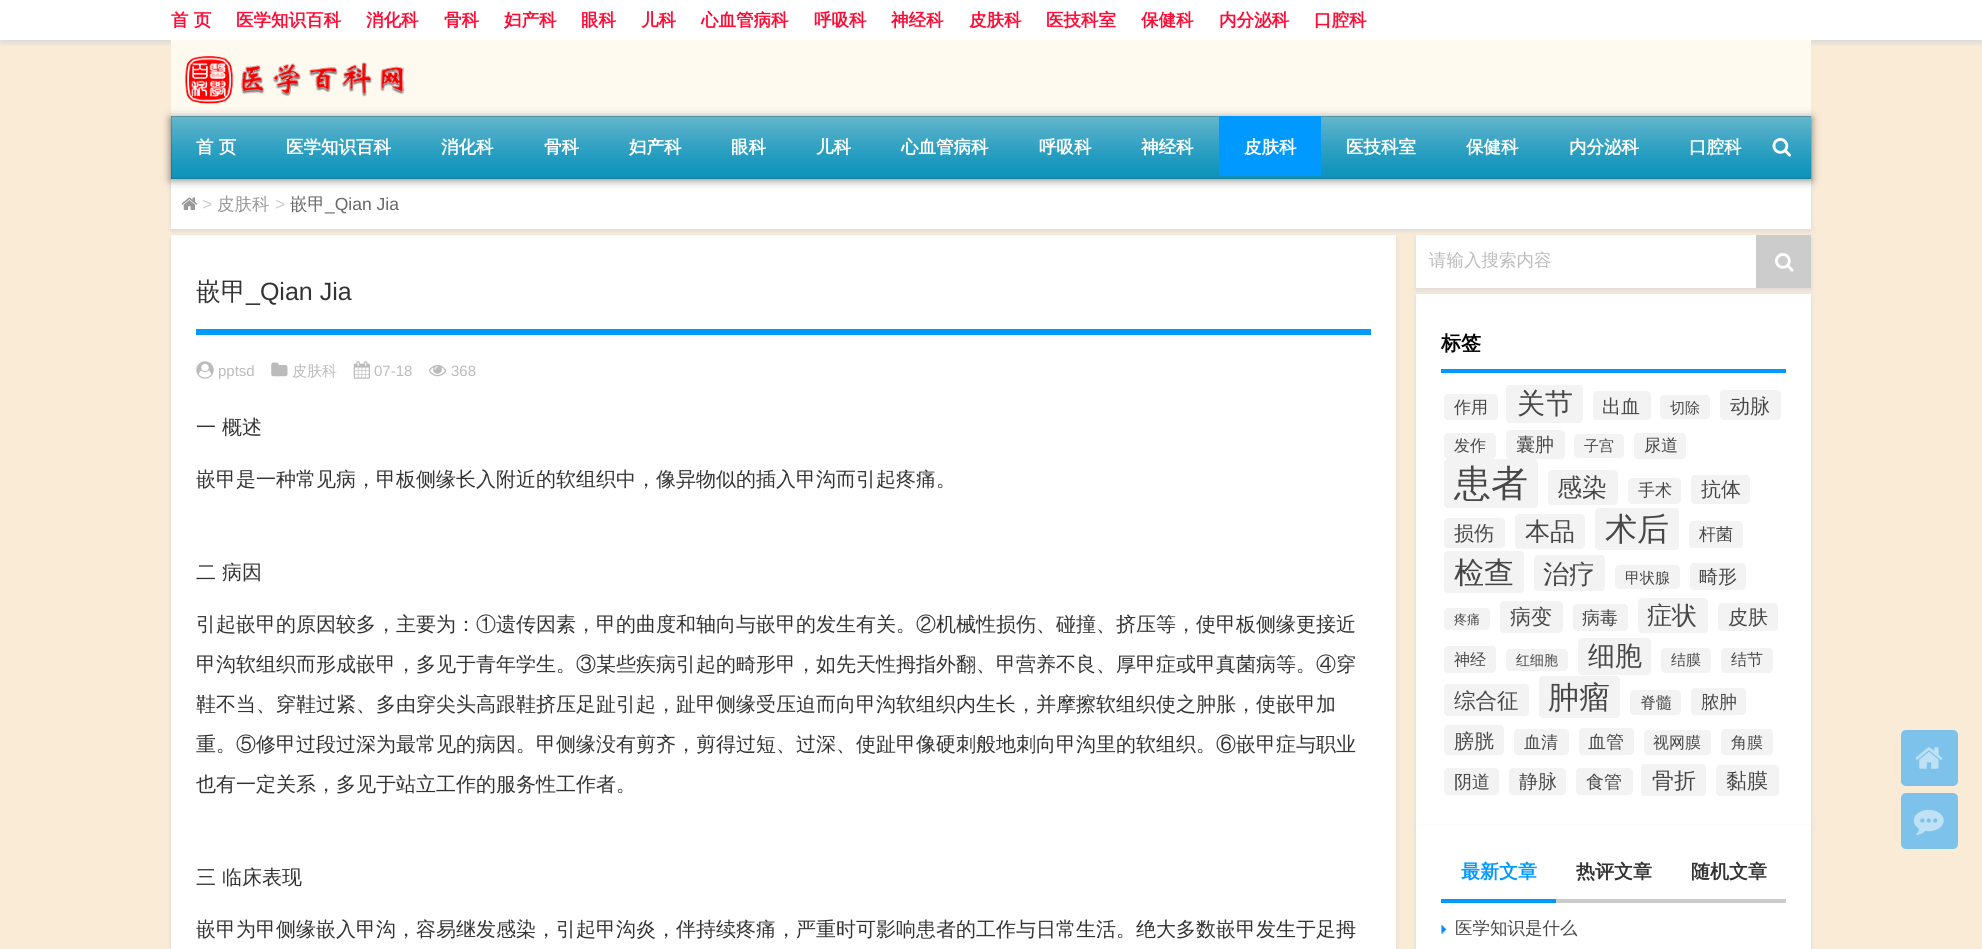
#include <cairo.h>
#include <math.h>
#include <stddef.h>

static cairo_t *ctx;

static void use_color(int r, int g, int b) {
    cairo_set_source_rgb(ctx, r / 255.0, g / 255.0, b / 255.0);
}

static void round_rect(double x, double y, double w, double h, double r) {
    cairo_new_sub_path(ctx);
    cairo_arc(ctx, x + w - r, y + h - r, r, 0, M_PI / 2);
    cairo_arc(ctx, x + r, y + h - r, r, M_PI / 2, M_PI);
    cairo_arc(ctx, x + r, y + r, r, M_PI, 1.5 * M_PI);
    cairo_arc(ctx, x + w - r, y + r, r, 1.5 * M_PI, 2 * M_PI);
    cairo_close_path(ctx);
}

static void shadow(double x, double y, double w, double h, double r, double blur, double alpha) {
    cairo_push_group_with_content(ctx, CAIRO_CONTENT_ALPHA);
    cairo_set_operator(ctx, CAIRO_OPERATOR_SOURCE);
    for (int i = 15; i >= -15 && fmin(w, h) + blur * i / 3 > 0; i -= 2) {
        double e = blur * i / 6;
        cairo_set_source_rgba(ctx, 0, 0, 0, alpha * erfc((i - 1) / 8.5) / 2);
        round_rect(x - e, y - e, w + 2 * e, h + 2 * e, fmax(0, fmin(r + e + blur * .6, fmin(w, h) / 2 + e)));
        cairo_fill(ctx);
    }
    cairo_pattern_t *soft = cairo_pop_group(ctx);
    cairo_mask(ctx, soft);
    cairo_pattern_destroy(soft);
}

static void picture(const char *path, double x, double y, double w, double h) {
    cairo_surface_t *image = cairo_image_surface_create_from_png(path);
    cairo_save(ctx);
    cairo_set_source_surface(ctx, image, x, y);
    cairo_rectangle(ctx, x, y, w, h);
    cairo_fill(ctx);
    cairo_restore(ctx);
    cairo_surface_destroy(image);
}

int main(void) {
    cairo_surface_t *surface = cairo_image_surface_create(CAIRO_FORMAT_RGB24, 1982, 949);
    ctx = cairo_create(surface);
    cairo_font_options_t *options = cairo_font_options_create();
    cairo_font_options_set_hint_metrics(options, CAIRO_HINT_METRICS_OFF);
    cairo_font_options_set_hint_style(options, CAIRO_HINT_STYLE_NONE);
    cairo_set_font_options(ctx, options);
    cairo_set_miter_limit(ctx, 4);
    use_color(250, 235, 215);
    cairo_paint(ctx);
    use_color(217, 217, 217);
    shadow(0, 3, 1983, 40, 0, 2.5, 1);
    use_color(255, 255, 255);
    cairo_rectangle(ctx, 0, 0, 1982, 40);
    cairo_fill(ctx);
    cairo_select_font_face(ctx, "WenQuanYi Zen Hei", CAIRO_FONT_SLANT_NORMAL, CAIRO_FONT_WEIGHT_BOLD);
    cairo_set_font_size(ctx, 17.5);
    use_color(255, 12, 54);
    cairo_move_to(ctx, 171, 26);
    cairo_show_text(ctx, "首 页");
    cairo_move_to(ctx, 236, 26);
    cairo_show_text(ctx, "医学知识百科");
    cairo_move_to(ctx, 366, 26);
    cairo_show_text(ctx, "消化科");
    cairo_move_to(ctx, 444, 26);
    cairo_show_text(ctx, "骨科");
    cairo_move_to(ctx, 504, 26);
    cairo_show_text(ctx, "妇产科");
    cairo_move_to(ctx, 581, 26);
    cairo_show_text(ctx, "眼科");
    cairo_move_to(ctx, 641, 26);
    cairo_show_text(ctx, "儿科");
    cairo_move_to(ctx, 701, 26);
    cairo_show_text(ctx, "心血管病科");
    cairo_move_to(ctx, 814, 26);
    cairo_show_text(ctx, "呼吸科");
    cairo_move_to(ctx, 891, 26);
    cairo_show_text(ctx, "神经科");
    cairo_move_to(ctx, 969, 26);
    cairo_show_text(ctx, "皮肤科");
    cairo_move_to(ctx, 1046, 26);
    cairo_show_text(ctx, "医技科室");
    cairo_move_to(ctx, 1141, 26);
    cairo_show_text(ctx, "保健科");
    cairo_move_to(ctx, 1219, 26);
    cairo_show_text(ctx, "内分泌科");
    cairo_move_to(ctx, 1314, 26);
    cairo_show_text(ctx, "口腔科");
    use_color(0, 0, 0);
    shadow(171, 119, 1640, 62, 0, 2.5, 0.1);
    use_color(255, 250, 240);
    cairo_rectangle(ctx, 171, 40, 1640, 76);
    cairo_fill(ctx);
    picture("img1.png", 184, 56, 220, 48);
    use_color(54, 54, 54);
    cairo_rectangle(ctx, 171, 116, 1640, 63);
    cairo_fill(ctx);
    use_color(217, 217, 217);
    shadow(171, 181, 1640, 50, 0, 2.5, 1);
    use_color(255, 255, 255);
    cairo_rectangle(ctx, 171, 179, 1640, 50);
    cairo_fill(ctx);
    use_color(0, 0, 0);
    shadow(171, 118, 1640, 62, 0, 4.5, 0.5);
    picture("img2.png", 171, 116, 1641, 63);
    use_color(255, 255, 255);
    cairo_move_to(ctx, 196, 153);
    cairo_show_text(ctx, "首 页");
    cairo_move_to(ctx, 286, 153);
    cairo_show_text(ctx, "医学知识百科");
    cairo_move_to(ctx, 441, 153);
    cairo_show_text(ctx, "消化科");
    cairo_move_to(ctx, 544, 153);
    cairo_show_text(ctx, "骨科");
    cairo_move_to(ctx, 629, 153);
    cairo_show_text(ctx, "妇产科");
    cairo_move_to(ctx, 731, 153);
    cairo_show_text(ctx, "眼科");
    cairo_move_to(ctx, 816, 153);
    cairo_show_text(ctx, "儿科");
    cairo_move_to(ctx, 901, 153);
    cairo_show_text(ctx, "心血管病科");
    cairo_move_to(ctx, 1039, 153);
    cairo_show_text(ctx, "呼吸科");
    cairo_move_to(ctx, 1141, 153);
    cairo_show_text(ctx, "神经科");
    use_color(0, 153, 255);
    cairo_rectangle(ctx, 1219, 116, 102, 60);
    cairo_fill(ctx);
    use_color(255, 255, 255);
    cairo_move_to(ctx, 1244, 153);
    cairo_show_text(ctx, "皮肤科");
    cairo_move_to(ctx, 1346, 153);
    cairo_show_text(ctx, "医技科室");
    cairo_move_to(ctx, 1466, 153);
    cairo_show_text(ctx, "保健科");
    cairo_move_to(ctx, 1569, 153);
    cairo_show_text(ctx, "内分泌科");
    cairo_move_to(ctx, 1689, 153);
    cairo_show_text(ctx, "口腔科");
    picture("img3.png", 1772, 138, 20, 19);
    picture("img4.png", 181, 197, 17, 13);
    cairo_select_font_face(ctx, "Liberation Sans", CAIRO_FONT_SLANT_NORMAL, CAIRO_FONT_WEIGHT_NORMAL);
    use_color(204, 204, 204);
    cairo_move_to(ctx, 202, 210);
    cairo_show_text(ctx, ">");
    cairo_select_font_face(ctx, "WenQuanYi Zen Hei Medium", CAIRO_FONT_SLANT_NORMAL, CAIRO_FONT_WEIGHT_NORMAL);
    use_color(153, 153, 153);
    cairo_move_to(ctx, 217, 210);
    cairo_show_text(ctx, "皮肤科");
    cairo_select_font_face(ctx, "Liberation Sans", CAIRO_FONT_SLANT_NORMAL, CAIRO_FONT_WEIGHT_NORMAL);
    use_color(204, 204, 204);
    cairo_move_to(ctx, 275, 210);
    cairo_show_text(ctx, ">");
    cairo_select_font_face(ctx, "WenQuanYi Zen Hei Medium", CAIRO_FONT_SLANT_NORMAL, CAIRO_FONT_WEIGHT_NORMAL);
    use_color(102, 102, 102);
    cairo_move_to(ctx, 290, 210);
    cairo_show_text(ctx, "嵌甲");
    cairo_select_font_face(ctx, "Liberation Sans", CAIRO_FONT_SLANT_NORMAL, CAIRO_FONT_WEIGHT_NORMAL);
    cairo_move_to(ctx, 325, 210);
    cairo_show_text(ctx, "_Qian Jia");
    use_color(217, 217, 217);
    shadow(171, 238, 1225, 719, 0, 2.5, 1);
    use_color(255, 255, 255);
    cairo_rectangle(ctx, 171, 235, 1225, 714);
    cairo_fill(ctx);
    cairo_select_font_face(ctx, "WenQuanYi Zen Hei Medium", CAIRO_FONT_SLANT_NORMAL, CAIRO_FONT_WEIGHT_NORMAL);
    cairo_set_font_size(ctx, 25);
    use_color(51, 51, 51);
    cairo_move_to(ctx, 196, 300);
    cairo_show_text(ctx, "嵌甲");
    cairo_select_font_face(ctx, "Liberation Sans", CAIRO_FONT_SLANT_NORMAL, CAIRO_FONT_WEIGHT_NORMAL);
    cairo_move_to(ctx, 246, 300);
    cairo_show_text(ctx, "_Qian Jia");
    use_color(0, 153, 255);
    cairo_rectangle(ctx, 196, 329, 1175, 6);
    cairo_fill(ctx);
    picture("img5.png", 196, 361, 18, 18);
    cairo_set_font_size(ctx, 15);
    use_color(187, 187, 187);
    cairo_move_to(ctx, 218, 376);
    cairo_show_text(ctx, "pptsd");
    picture("img6.png", 271, 362, 17, 15);
    cairo_select_font_face(ctx, "WenQuanYi Zen Hei Medium", CAIRO_FONT_SLANT_NORMAL, CAIRO_FONT_WEIGHT_NORMAL);
    cairo_move_to(ctx, 292, 376);
    cairo_show_text(ctx, "皮肤科");
    picture("img7.png", 353, 361, 17, 18);
    cairo_select_font_face(ctx, "Liberation Sans", CAIRO_FONT_SLANT_NORMAL, CAIRO_FONT_WEIGHT_NORMAL);
    cairo_move_to(ctx, 374, 376);
    cairo_show_text(ctx, "07-18");
    picture("img8.png", 428, 365, 19, 12);
    cairo_move_to(ctx, 451, 376);
    cairo_show_text(ctx, "368");
    cairo_select_font_face(ctx, "WenQuanYi Zen Hei Medium", CAIRO_FONT_SLANT_NORMAL, CAIRO_FONT_WEIGHT_NORMAL);
    cairo_set_font_size(ctx, 20);
    use_color(51, 51, 51);
    cairo_move_to(ctx, 196, 434);
    cairo_show_text(ctx, "一");
    cairo_move_to(ctx, 222, 434);
    cairo_show_text(ctx, "概述");
    cairo_move_to(ctx, 196, 486);
    cairo_show_text(ctx, "嵌甲是一种常见病，甲板侧缘长入附近的软组织中，像异物似的插入甲沟而引起疼痛。");
    cairo_move_to(ctx, 196, 579);
    cairo_show_text(ctx, "二");
    cairo_move_to(ctx, 222, 579);
    cairo_show_text(ctx, "病因");
    cairo_move_to(ctx, 196, 631);
    cairo_show_text(ctx, "引起嵌甲的原因较多，主要为：①遗传因素，甲的曲度和轴向与嵌甲的发生有关。②机械性损伤、碰撞、挤压等，使甲板侧缘更接近");
    cairo_move_to(ctx, 196, 671);
    cairo_show_text(ctx, "甲沟软组织而形成嵌甲，多见于青年学生。③某些疾病引起的畸形甲，如先天性拇指外翻、甲营养不良、厚甲症或甲真菌病等。④穿");
    cairo_move_to(ctx, 196, 711);
    cairo_show_text(ctx, "鞋不当、穿鞋过紧、多由穿尖头高跟鞋挤压足趾引起，趾甲侧缘受压迫而向甲沟软组织内生长，并摩擦软组织使之肿胀，使嵌甲加");
    cairo_move_to(ctx, 196, 751);
    cairo_show_text(ctx, "重。⑤修甲过段过深为最常见的病因。甲侧缘没有剪齐，剪得过短、过深、使趾甲像硬刺般地刺向甲沟里的软组织。⑥嵌甲症与职业");
    cairo_move_to(ctx, 196, 791);
    cairo_show_text(ctx, "也有一定关系，多见于站立工作的服务性工作者。");
    cairo_move_to(ctx, 196, 884);
    cairo_show_text(ctx, "三");
    cairo_move_to(ctx, 222, 884);
    cairo_show_text(ctx, "临床表现");
    cairo_move_to(ctx, 196, 936);
    cairo_show_text(ctx, "嵌甲为甲侧缘嵌入甲沟，容易继发感染，引起甲沟炎，伴持续疼痛，严重时可影响患者的工作与日常生活。绝大多数嵌甲发生于足拇");
    use_color(217, 217, 217);
    shadow(1416, 238, 395, 52, 0, 2.5, 1);
    use_color(255, 255, 255);
    cairo_rectangle(ctx, 1416, 235, 340, 53);
    cairo_fill(ctx);
    cairo_set_font_size(ctx, 17.5);
    use_color(187, 187, 187);
    cairo_move_to(ctx, 1429, 266);
    cairo_show_text(ctx, "请输入搜索内容");
    use_color(204, 204, 204);
    cairo_rectangle(ctx, 1756, 235, 55, 53);
    cairo_fill(ctx);
    picture("img9.png", 1775, 253, 19, 19);
    use_color(217, 217, 217);
    shadow(1416, 296, 395, 532, 0, 2.5, 1);
    use_color(255, 255, 255);
    cairo_rectangle(ctx, 1416, 294, 395, 531);
    cairo_fill(ctx);
    use_color(0, 153, 255);
    cairo_rectangle(ctx, 1441, 369, 345, 4);
    cairo_fill(ctx);
    cairo_select_font_face(ctx, "WenQuanYi Zen Hei", CAIRO_FONT_SLANT_NORMAL, CAIRO_FONT_WEIGHT_BOLD);
    cairo_set_font_size(ctx, 20);
    use_color(0, 0, 0);
    cairo_move_to(ctx, 1441, 350);
    cairo_show_text(ctx, "标签");
    use_color(243, 243, 243);
    round_rect(1444, 394, 54, 26, 4);
    cairo_fill(ctx);
    cairo_select_font_face(ctx, "WenQuanYi Zen Hei Medium", CAIRO_FONT_SLANT_NORMAL, CAIRO_FONT_WEIGHT_NORMAL);
    cairo_set_font_size(ctx, 17);
    use_color(71, 71, 71);
    cairo_move_to(ctx, 1454, 413);
    cairo_show_text(ctx, "作用");
    cairo_save(ctx);
    cairo_rectangle(ctx, 1441, 385, 345, 415);
    cairo_clip(ctx);
    use_color(243, 243, 243);
    round_rect(1506, 384, 77, 39, 4);
    cairo_fill(ctx);
    cairo_restore(ctx);
    cairo_set_font_size(ctx, 28);
    cairo_move_to(ctx, 1517, 413);
    cairo_show_text(ctx, "关节");
    use_color(243, 243, 243);
    round_rect(1593, 391, 58, 29, 4);
    cairo_fill(ctx);
    cairo_set_font_size(ctx, 19);
    use_color(71, 71, 71);
    cairo_move_to(ctx, 1602, 413);
    cairo_show_text(ctx, "出血");
    use_color(243, 243, 243);
    round_rect(1660, 395, 50, 24, 4);
    cairo_fill(ctx);
    cairo_set_font_size(ctx, 15);
    use_color(71, 71, 71);
    cairo_move_to(ctx, 1670, 413);
    cairo_show_text(ctx, "切除");
    use_color(243, 243, 243);
    round_rect(1720, 390, 61, 30, 4);
    cairo_fill(ctx);
    cairo_set_font_size(ctx, 20);
    use_color(71, 71, 71);
    cairo_move_to(ctx, 1730, 413);
    cairo_show_text(ctx, "动脉");
    use_color(243, 243, 243);
    round_rect(1444, 433, 52, 26, 4);
    cairo_fill(ctx);
    cairo_set_font_size(ctx, 16);
    use_color(71, 71, 71);
    cairo_move_to(ctx, 1454, 451);
    cairo_show_text(ctx, "发作");
    use_color(243, 243, 243);
    round_rect(1506, 430, 59, 29, 4);
    cairo_fill(ctx);
    cairo_set_font_size(ctx, 19);
    use_color(71, 71, 71);
    cairo_move_to(ctx, 1516, 451);
    cairo_show_text(ctx, "囊肿");
    use_color(243, 243, 243);
    round_rect(1574, 434, 50, 24, 4);
    cairo_fill(ctx);
    cairo_set_font_size(ctx, 15);
    use_color(71, 71, 71);
    cairo_move_to(ctx, 1584, 451);
    cairo_show_text(ctx, "子宫");
    use_color(243, 243, 243);
    round_rect(1634, 433, 52, 26, 4);
    cairo_fill(ctx);
    cairo_set_font_size(ctx, 17);
    use_color(71, 71, 71);
    cairo_move_to(ctx, 1644, 451);
    cairo_show_text(ctx, "尿道");
    use_color(243, 243, 243);
    round_rect(1444, 459, 94, 49, 4);
    cairo_fill(ctx);
    cairo_set_font_size(ctx, 37);
    use_color(71, 71, 71);
    cairo_move_to(ctx, 1454, 496);
    cairo_show_text(ctx, "患者");
    use_color(243, 243, 243);
    round_rect(1548, 470, 70, 35, 4);
    cairo_fill(ctx);
    cairo_set_font_size(ctx, 25);
    use_color(71, 71, 71);
    cairo_move_to(ctx, 1557, 496);
    cairo_show_text(ctx, "感染");
    use_color(243, 243, 243);
    round_rect(1628, 478, 53, 26, 4);
    cairo_fill(ctx);
    cairo_set_font_size(ctx, 17);
    use_color(71, 71, 71);
    cairo_move_to(ctx, 1638, 496);
    cairo_show_text(ctx, "手术");
    use_color(243, 243, 243);
    round_rect(1691, 475, 59, 29, 4);
    cairo_fill(ctx);
    cairo_set_font_size(ctx, 20);
    use_color(71, 71, 71);
    cairo_move_to(ctx, 1701, 496);
    cairo_show_text(ctx, "抗体");
    use_color(243, 243, 243);
    round_rect(1444, 518, 61, 30, 4);
    cairo_fill(ctx);
    use_color(71, 71, 71);
    cairo_move_to(ctx, 1454, 540);
    cairo_show_text(ctx, "损伤");
    use_color(243, 243, 243);
    round_rect(1515, 514, 70, 35, 4);
    cairo_fill(ctx);
    cairo_set_font_size(ctx, 25);
    use_color(71, 71, 71);
    cairo_move_to(ctx, 1525, 540);
    cairo_show_text(ctx, "本品");
    use_color(243, 243, 243);
    round_rect(1595, 508, 84, 42, 4);
    cairo_fill(ctx);
    cairo_set_font_size(ctx, 32);
    use_color(71, 71, 71);
    cairo_move_to(ctx, 1605, 540);
    cairo_show_text(ctx, "术后");
    use_color(243, 243, 243);
    round_rect(1689, 521, 54, 27, 4);
    cairo_fill(ctx);
    cairo_set_font_size(ctx, 17);
    use_color(71, 71, 71);
    cairo_move_to(ctx, 1699, 540);
    cairo_show_text(ctx, "杆菌");
    use_color(243, 243, 243);
    round_rect(1444, 551, 80, 42, 4);
    cairo_fill(ctx);
    cairo_set_font_size(ctx, 30);
    use_color(71, 71, 71);
    cairo_move_to(ctx, 1454, 583);
    cairo_show_text(ctx, "检查");
    use_color(243, 243, 243);
    round_rect(1534, 555, 71, 36, 4);
    cairo_fill(ctx);
    cairo_set_font_size(ctx, 26);
    use_color(71, 71, 71);
    cairo_move_to(ctx, 1543, 583);
    cairo_show_text(ctx, "治疗");
    use_color(243, 243, 243);
    round_rect(1615, 565, 65, 24, 4);
    cairo_fill(ctx);
    cairo_set_font_size(ctx, 15);
    use_color(71, 71, 71);
    cairo_move_to(ctx, 1625, 583);
    cairo_show_text(ctx, "甲状腺");
    use_color(243, 243, 243);
    round_rect(1690, 563, 56, 27, 4);
    cairo_fill(ctx);
    cairo_set_font_size(ctx, 19);
    use_color(71, 71, 71);
    cairo_move_to(ctx, 1699, 583);
    cairo_show_text(ctx, "畸形");
    use_color(243, 243, 243);
    round_rect(1444, 608, 46, 22, 4);
    cairo_fill(ctx);
    cairo_set_font_size(ctx, 13);
    use_color(71, 71, 71);
    cairo_move_to(ctx, 1454, 624);
    cairo_show_text(ctx, "疼痛");
    use_color(243, 243, 243);
    round_rect(1500, 601, 63, 32, 4);
    cairo_fill(ctx);
    cairo_set_font_size(ctx, 21);
    use_color(71, 71, 71);
    cairo_move_to(ctx, 1510, 624);
    cairo_show_text(ctx, "病变");
    use_color(243, 243, 243);
    round_rect(1573, 604, 55, 27, 4);
    cairo_fill(ctx);
    cairo_set_font_size(ctx, 18);
    use_color(71, 71, 71);
    cairo_move_to(ctx, 1582, 624);
    cairo_show_text(ctx, "病毒");
    use_color(243, 243, 243);
    round_rect(1638, 598, 70, 35, 4);
    cairo_fill(ctx);
    cairo_set_font_size(ctx, 25);
    use_color(71, 71, 71);
    cairo_move_to(ctx, 1647, 624);
    cairo_show_text(ctx, "症状");
    use_color(243, 243, 243);
    round_rect(1718, 603, 60, 28, 4);
    cairo_fill(ctx);
    cairo_set_font_size(ctx, 20);
    use_color(71, 71, 71);
    cairo_move_to(ctx, 1728, 624);
    cairo_show_text(ctx, "皮肤");
    use_color(243, 243, 243);
    round_rect(1444, 646, 52, 27, 4);
    cairo_fill(ctx);
    cairo_set_font_size(ctx, 16);
    use_color(71, 71, 71);
    cairo_move_to(ctx, 1454, 665);
    cairo_show_text(ctx, "神经");
    use_color(243, 243, 243);
    round_rect(1506, 649, 62, 22, 4);
    cairo_fill(ctx);
    cairo_set_font_size(ctx, 14);
    use_color(71, 71, 71);
    cairo_move_to(ctx, 1516, 665);
    cairo_show_text(ctx, "红细胞");
    use_color(243, 243, 243);
    round_rect(1578, 638, 73, 37, 4);
    cairo_fill(ctx);
    cairo_set_font_size(ctx, 27);
    use_color(71, 71, 71);
    cairo_move_to(ctx, 1588, 665);
    cairo_show_text(ctx, "细胞");
    use_color(243, 243, 243);
    round_rect(1661, 648, 50, 25, 4);
    cairo_fill(ctx);
    cairo_set_font_size(ctx, 15);
    use_color(71, 71, 71);
    cairo_move_to(ctx, 1671, 665);
    cairo_show_text(ctx, "结膜");
    use_color(243, 243, 243);
    round_rect(1721, 648, 52, 25, 4);
    cairo_fill(ctx);
    cairo_set_font_size(ctx, 16);
    use_color(71, 71, 71);
    cairo_move_to(ctx, 1731, 665);
    cairo_show_text(ctx, "结节");
    use_color(243, 243, 243);
    round_rect(1444, 684, 85, 32, 4);
    cairo_fill(ctx);
    cairo_set_font_size(ctx, 21.5);
    use_color(71, 71, 71);
    cairo_move_to(ctx, 1454, 708);
    cairo_show_text(ctx, "综合征");
    use_color(243, 243, 243);
    round_rect(1539, 676, 81, 42, 4);
    cairo_fill(ctx);
    cairo_set_font_size(ctx, 31);
    use_color(71, 71, 71);
    cairo_move_to(ctx, 1548, 708);
    cairo_show_text(ctx, "肿瘤");
    use_color(243, 243, 243);
    round_rect(1630, 690, 51, 25, 4);
    cairo_fill(ctx);
    cairo_set_font_size(ctx, 16);
    use_color(71, 71, 71);
    cairo_move_to(ctx, 1640, 708);
    cairo_show_text(ctx, "脊髓");
    use_color(243, 243, 243);
    round_rect(1691, 688, 55, 27, 4);
    cairo_fill(ctx);
    cairo_set_font_size(ctx, 18);
    use_color(71, 71, 71);
    cairo_move_to(ctx, 1701, 708);
    cairo_show_text(ctx, "脓肿");
    use_color(243, 243, 243);
    round_rect(1444, 725, 60, 30, 4);
    cairo_fill(ctx);
    cairo_set_font_size(ctx, 20);
    use_color(71, 71, 71);
    cairo_move_to(ctx, 1454, 748);
    cairo_show_text(ctx, "膀胱");
    use_color(243, 243, 243);
    round_rect(1514, 729, 55, 26, 4);
    cairo_fill(ctx);
    cairo_set_font_size(ctx, 17);
    use_color(71, 71, 71);
    cairo_move_to(ctx, 1524, 748);
    cairo_show_text(ctx, "血清");
    use_color(243, 243, 243);
    round_rect(1579, 728, 55, 27, 4);
    cairo_fill(ctx);
    cairo_set_font_size(ctx, 18);
    use_color(71, 71, 71);
    cairo_move_to(ctx, 1588, 748);
    cairo_show_text(ctx, "血管");
    use_color(243, 243, 243);
    round_rect(1644, 730, 67, 25, 4);
    cairo_fill(ctx);
    cairo_set_font_size(ctx, 16);
    use_color(71, 71, 71);
    cairo_move_to(ctx, 1653, 748);
    cairo_show_text(ctx, "视网膜");
    use_color(243, 243, 243);
    round_rect(1721, 729, 52, 26, 4);
    cairo_fill(ctx);
    use_color(71, 71, 71);
    cairo_move_to(ctx, 1731, 748);
    cairo_show_text(ctx, "角膜");
    use_color(243, 243, 243);
    round_rect(1444, 768, 55, 27, 4);
    cairo_fill(ctx);
    cairo_set_font_size(ctx, 18);
    use_color(71, 71, 71);
    cairo_move_to(ctx, 1454, 788);
    cairo_show_text(ctx, "阴道");
    use_color(243, 243, 243);
    round_rect(1509, 768, 57, 27, 4);
    cairo_fill(ctx);
    cairo_set_font_size(ctx, 19);
    use_color(71, 71, 71);
    cairo_move_to(ctx, 1519, 788);
    cairo_show_text(ctx, "静脉");
    use_color(243, 243, 243);
    round_rect(1576, 768, 57, 27, 4);
    cairo_fill(ctx);
    cairo_set_font_size(ctx, 18);
    use_color(71, 71, 71);
    cairo_move_to(ctx, 1586, 788);
    cairo_show_text(ctx, "食管");
    use_color(243, 243, 243);
    round_rect(1641, 764, 65, 32, 4);
    cairo_fill(ctx);
    cairo_set_font_size(ctx, 22);
    use_color(71, 71, 71);
    cairo_move_to(ctx, 1652, 788);
    cairo_show_text(ctx, "骨折");
    use_color(243, 243, 243);
    round_rect(1716, 765, 63, 31, 4);
    cairo_fill(ctx);
    cairo_set_font_size(ctx, 21);
    use_color(71, 71, 71);
    cairo_move_to(ctx, 1726, 788);
    cairo_show_text(ctx, "黏膜");
    use_color(217, 217, 217);
    shadow(1416, 828, 395, 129, 0, 2.5, 1);
    use_color(255, 255, 255);
    cairo_rectangle(ctx, 1416, 825, 395, 124);
    cairo_fill(ctx);
    use_color(0, 153, 255);
    cairo_rectangle(ctx, 1441, 899, 115, 4);
    cairo_fill(ctx);
    cairo_select_font_face(ctx, "WenQuanYi Zen Hei", CAIRO_FONT_SLANT_NORMAL, CAIRO_FONT_WEIGHT_BOLD);
    cairo_set_font_size(ctx, 19);
    cairo_move_to(ctx, 1461, 878);
    cairo_show_text(ctx, "最新文章");
    use_color(204, 204, 204);
    cairo_rectangle(ctx, 1556, 899, 230, 4);
    cairo_fill(ctx);
    use_color(51, 51, 51);
    cairo_move_to(ctx, 1576, 878);
    cairo_show_text(ctx, "热评文章");
    cairo_move_to(ctx, 1691, 878);
    cairo_show_text(ctx, "随机文章");
    picture("img10.png", 1441, 925, 6, 9);
    cairo_select_font_face(ctx, "WenQuanYi Zen Hei Medium", CAIRO_FONT_SLANT_NORMAL, CAIRO_FONT_WEIGHT_NORMAL);
    cairo_set_font_size(ctx, 17.5);
    use_color(71, 71, 71);
    cairo_move_to(ctx, 1455, 934);
    cairo_show_text(ctx, "医学知识是什么");
    use_color(125, 194, 235);
    round_rect(1901, 730, 57, 56, 5);
    cairo_fill(ctx);
    picture("img11.png", 1915, 747, 28, 22);
    round_rect(1901, 793, 57, 56, 5);
    cairo_fill(ctx);
    picture("img12.png", 1913, 809, 31, 26);
    cairo_surface_write_to_png(surface, "result.png");
    cairo_font_options_destroy(options);
    cairo_destroy(ctx);
    cairo_surface_destroy(surface);
    return 0;
}
